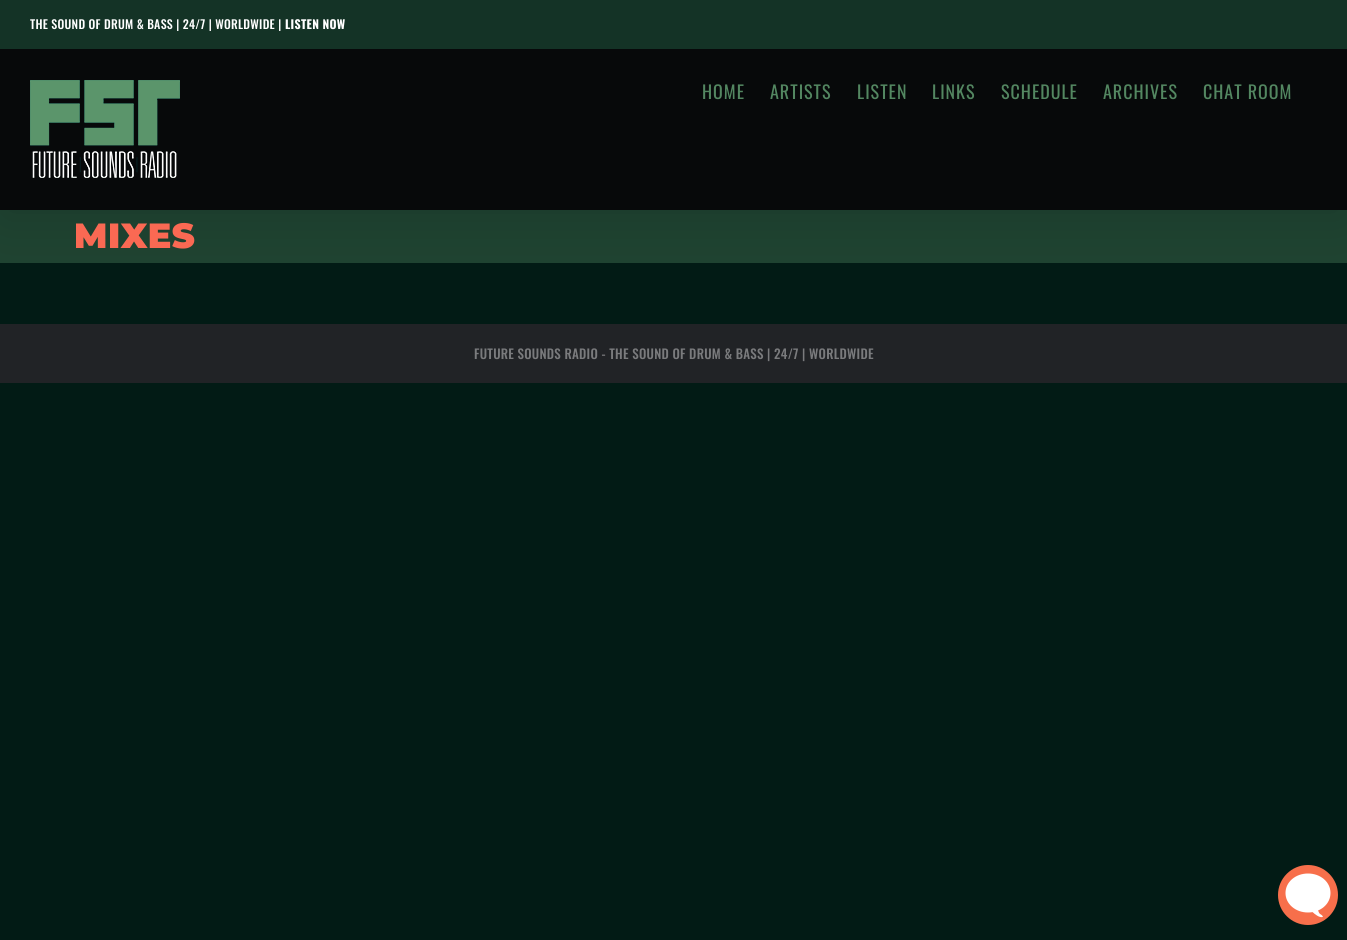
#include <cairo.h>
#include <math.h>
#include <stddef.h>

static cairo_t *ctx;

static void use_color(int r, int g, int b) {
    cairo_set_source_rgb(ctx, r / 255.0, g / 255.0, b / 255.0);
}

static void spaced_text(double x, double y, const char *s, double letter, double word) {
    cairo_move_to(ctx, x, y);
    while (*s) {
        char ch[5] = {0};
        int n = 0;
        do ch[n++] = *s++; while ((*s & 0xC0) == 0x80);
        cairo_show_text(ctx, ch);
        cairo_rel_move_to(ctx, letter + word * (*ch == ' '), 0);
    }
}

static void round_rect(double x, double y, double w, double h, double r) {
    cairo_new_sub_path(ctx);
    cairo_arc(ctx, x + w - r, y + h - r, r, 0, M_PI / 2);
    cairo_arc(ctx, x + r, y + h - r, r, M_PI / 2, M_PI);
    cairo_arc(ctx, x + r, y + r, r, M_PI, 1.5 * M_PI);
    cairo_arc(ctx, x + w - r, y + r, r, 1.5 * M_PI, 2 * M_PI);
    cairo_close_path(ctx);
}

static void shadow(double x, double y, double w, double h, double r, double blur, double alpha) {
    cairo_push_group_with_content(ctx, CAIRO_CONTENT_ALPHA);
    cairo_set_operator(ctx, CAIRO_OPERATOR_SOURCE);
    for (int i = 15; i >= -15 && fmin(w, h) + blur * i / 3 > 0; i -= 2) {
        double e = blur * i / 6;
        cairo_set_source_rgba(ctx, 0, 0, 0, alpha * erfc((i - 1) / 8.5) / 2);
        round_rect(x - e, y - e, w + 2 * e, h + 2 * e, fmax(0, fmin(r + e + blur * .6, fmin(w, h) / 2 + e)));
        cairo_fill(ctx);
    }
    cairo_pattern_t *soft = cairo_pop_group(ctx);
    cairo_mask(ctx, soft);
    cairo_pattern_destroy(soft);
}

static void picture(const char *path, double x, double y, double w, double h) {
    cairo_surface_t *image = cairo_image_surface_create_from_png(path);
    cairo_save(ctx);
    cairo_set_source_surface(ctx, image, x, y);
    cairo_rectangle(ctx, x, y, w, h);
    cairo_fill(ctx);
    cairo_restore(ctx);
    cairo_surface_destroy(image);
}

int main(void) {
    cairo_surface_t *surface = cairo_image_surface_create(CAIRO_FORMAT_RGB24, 1347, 940);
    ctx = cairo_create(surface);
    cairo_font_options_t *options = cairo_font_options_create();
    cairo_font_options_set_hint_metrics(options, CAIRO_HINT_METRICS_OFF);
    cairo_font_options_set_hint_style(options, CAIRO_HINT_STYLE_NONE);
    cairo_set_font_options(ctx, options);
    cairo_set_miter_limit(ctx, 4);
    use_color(2, 27, 21);
    cairo_paint(ctx);
    use_color(31, 67, 49);
    cairo_rectangle(ctx, 0, 210, 1347, 53);
    cairo_fill(ctx);
    use_color(0, 0, 0);
    shadow(2, 12, 1343, 206, 0, 25, 0.14);
    use_color(20, 51, 38);
    cairo_rectangle(ctx, 0, 0, 1347, 49);
    cairo_fill(ctx);
    cairo_select_font_face(ctx, "Oswald Medium", CAIRO_FONT_SLANT_NORMAL, CAIRO_FONT_WEIGHT_NORMAL);
    cairo_set_font_size(ctx, 12);
    use_color(255, 255, 255);
    spaced_text(30, 29, "THE SOUND OF DRUM & BASS | 24/7 | WORLDWIDE |", 0.27, 0);
    cairo_select_font_face(ctx, "Oswald", CAIRO_FONT_SLANT_NORMAL, CAIRO_FONT_WEIGHT_BOLD);
    spaced_text(285, 29, "LISTEN NOW", 0.27, 0);
    use_color(7, 9, 10);
    cairo_rectangle(ctx, 0, 49, 1347, 161);
    cairo_fill(ctx);
    picture("img1.png", 30, 80, 150, 98);
    cairo_select_font_face(ctx, "Oswald", CAIRO_FONT_SLANT_NORMAL, CAIRO_FONT_WEIGHT_NORMAL);
    cairo_set_font_size(ctx, 18);
    use_color(83, 135, 97);
    spaced_text(702, 99, "HOME", 1, 0);
    spaced_text(770, 99, "ARTISTS", 1, 0);
    spaced_text(857, 99, "LISTEN", 1, 0);
    spaced_text(932, 99, "LINKS", 1, 0);
    spaced_text(1001, 99, "SCHEDULE", 1, 0);
    spaced_text(1103, 99, "ARCHIVES", 1, 0);
    spaced_text(1203, 99, "CHAT ROOM", 1, 0);
    cairo_select_font_face(ctx, "Montserrat Black", CAIRO_FONT_SLANT_NORMAL, CAIRO_FONT_WEIGHT_NORMAL);
    cairo_set_font_size(ctx, 35);
    use_color(250, 105, 83);
    spaced_text(74, 248, "MIXES", 0.5, 0);
    use_color(33, 35, 38);
    cairo_rectangle(ctx, 0, 324, 1347, 59);
    cairo_fill(ctx);
    cairo_select_font_face(ctx, "Oswald Medium", CAIRO_FONT_SLANT_NORMAL, CAIRO_FONT_WEIGHT_NORMAL);
    cairo_set_font_size(ctx, 13);
    use_color(122, 123, 125);
    spaced_text(474, 359, "FUTURE SOUNDS RADIO - THE SOUND OF DRUM & BASS | 24/7 | WORLDWIDE", 0.27, 0);
    use_color(247, 111, 75);
    cairo_new_path(ctx);
    cairo_arc(ctx, 1308, 895, 30, 0, 2 * M_PI);
    cairo_fill(ctx);
    use_color(255, 255, 255);
    cairo_new_path(ctx);
    cairo_move_to(ctx, 1308, 873.5);
    cairo_curve_to(ctx, 1320.5, 873.5, 1330.5, 882, 1330.5, 893);
    cairo_curve_to(ctx, 1330.5, 904, 1320.5, 912.5, 1308, 912.5);
    cairo_curve_to(ctx, 1295.5, 912.5, 1285.5, 904, 1285.5, 893);
    cairo_curve_to(ctx, 1285.5, 882, 1295.5, 873.5, 1308, 873.5);
    cairo_close_path(ctx);
    cairo_fill(ctx);
    cairo_set_fill_rule(ctx, CAIRO_FILL_RULE_EVEN_ODD);
    cairo_new_path(ctx);
    cairo_move_to(ctx, 1317.5, 909);
    cairo_curve_to(ctx, 1318.5, 911, 1318.5, 912.5, 1320, 914);
    cairo_curve_to(ctx, 1320.5, 914, 1324, 916.5, 1322.5, 917);
    cairo_curve_to(ctx, 1319.5, 918, 1314.5, 914, 1312.5, 912);
    cairo_curve_to(ctx, 1309.5, 909, 1316, 905.5, 1317.5, 909);
    cairo_close_path(ctx);
    cairo_fill(ctx);
    cairo_surface_write_to_png(surface, "result.png");
    cairo_font_options_destroy(options);
    cairo_destroy(ctx);
    cairo_surface_destroy(surface);
    return 0;
}
